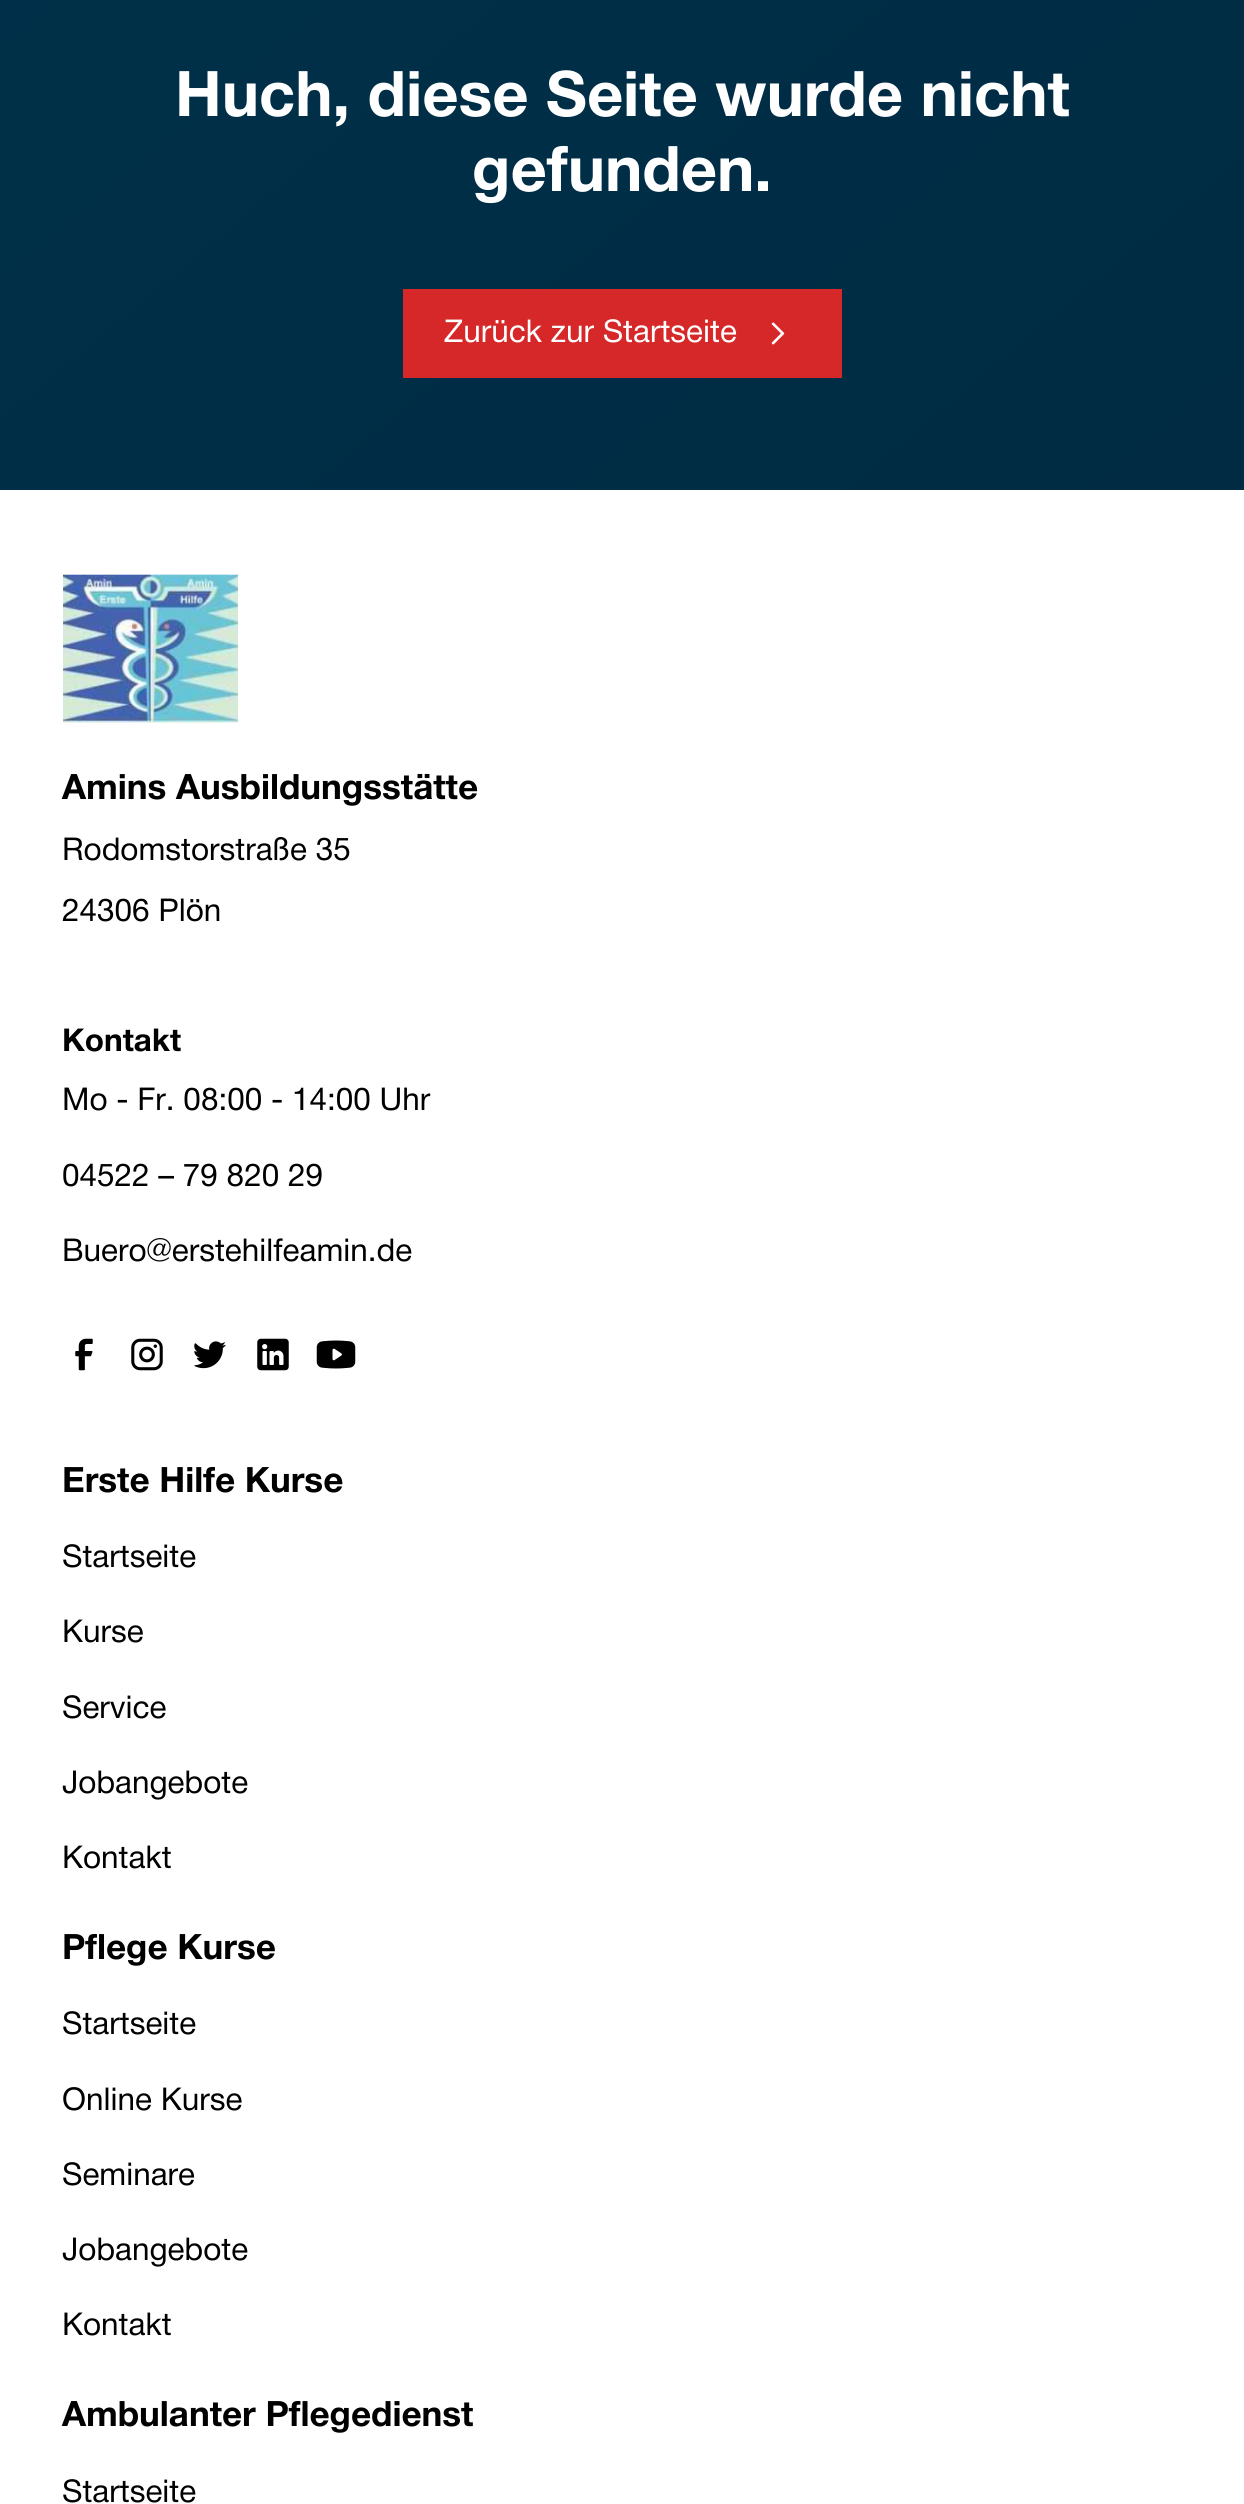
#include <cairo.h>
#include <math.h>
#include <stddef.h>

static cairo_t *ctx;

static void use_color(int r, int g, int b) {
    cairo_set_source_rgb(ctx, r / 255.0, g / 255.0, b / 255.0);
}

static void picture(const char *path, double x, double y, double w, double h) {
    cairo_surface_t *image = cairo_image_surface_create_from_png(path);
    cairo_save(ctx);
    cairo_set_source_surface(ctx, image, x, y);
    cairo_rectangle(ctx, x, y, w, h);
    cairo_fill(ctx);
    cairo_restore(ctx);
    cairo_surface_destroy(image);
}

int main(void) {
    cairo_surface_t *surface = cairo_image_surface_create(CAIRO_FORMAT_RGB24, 1244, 2504);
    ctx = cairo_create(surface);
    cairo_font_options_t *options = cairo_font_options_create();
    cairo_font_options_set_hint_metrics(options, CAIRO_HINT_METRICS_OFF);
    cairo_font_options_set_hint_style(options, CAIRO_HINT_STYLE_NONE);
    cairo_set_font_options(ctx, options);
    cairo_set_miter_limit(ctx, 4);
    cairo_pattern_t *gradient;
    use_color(255, 255, 255);
    cairo_paint(ctx);
    gradient = cairo_pattern_create_linear(232, -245, 1012, 685);
    cairo_pattern_add_color_stop_rgba(gradient, 0, 0, 0.188, 0.286, 1);
    cairo_pattern_add_color_stop_rgba(gradient, 1, 0, 0.169, 0.259, 1);
    cairo_set_source(ctx, gradient);
    cairo_pattern_destroy(gradient);
    cairo_rectangle(ctx, 0, 0, 1244, 490);
    cairo_fill(ctx);
    cairo_select_font_face(ctx, "Helvetica Neue", CAIRO_FONT_SLANT_NORMAL, CAIRO_FONT_WEIGHT_BOLD);
    cairo_set_font_size(ctx, 63);
    use_color(255, 255, 255);
    cairo_move_to(ctx, 175, 116);
    cairo_show_text(ctx, "Huch, diese Seite wurde nicht");
    cairo_move_to(ctx, 472, 191);
    cairo_show_text(ctx, "gefunden.");
    use_color(214, 40, 40);
    cairo_rectangle(ctx, 403, 289, 439, 89);
    cairo_fill(ctx);
    cairo_select_font_face(ctx, "Helvetica Neue", CAIRO_FONT_SLANT_NORMAL, CAIRO_FONT_WEIGHT_NORMAL);
    cairo_set_font_size(ctx, 31.5);
    use_color(255, 255, 255);
    cairo_move_to(ctx, 444, 342);
    cairo_show_text(ctx, "Zurück zur Startseite");
    picture("img1.png", 771, 322, 14, 23);
    picture("img2.png", 63, 574, 175, 149);
    cairo_select_font_face(ctx, "Helvetica Neue", CAIRO_FONT_SLANT_NORMAL, CAIRO_FONT_WEIGHT_BOLD);
    cairo_set_font_size(ctx, 35);
    use_color(0, 0, 0);
    cairo_move_to(ctx, 62, 799);
    cairo_show_text(ctx, "Amins Ausbildungsstätte");
    cairo_select_font_face(ctx, "Helvetica Neue", CAIRO_FONT_SLANT_NORMAL, CAIRO_FONT_WEIGHT_NORMAL);
    cairo_set_font_size(ctx, 31.5);
    cairo_move_to(ctx, 62, 860);
    cairo_show_text(ctx, "Rodomstorstraße 35");
    cairo_move_to(ctx, 62, 921);
    cairo_show_text(ctx, "24306 Plön");
    cairo_select_font_face(ctx, "Helvetica Neue", CAIRO_FONT_SLANT_NORMAL, CAIRO_FONT_WEIGHT_BOLD);
    cairo_move_to(ctx, 62, 1051);
    cairo_show_text(ctx, "Kontakt");
    cairo_select_font_face(ctx, "Helvetica Neue", CAIRO_FONT_SLANT_NORMAL, CAIRO_FONT_WEIGHT_NORMAL);
    cairo_move_to(ctx, 62, 1110);
    cairo_show_text(ctx, "Mo - Fr. 08:00 - 14:00 Uhr");
    cairo_move_to(ctx, 62, 1186);
    cairo_show_text(ctx, "04522 – 79 820 29");
    cairo_move_to(ctx, 62, 1261);
    cairo_show_text(ctx, "Buero@erstehilfeamin.de");
    picture("img3.png", 75, 1338, 18, 33);
    picture("img4.png", 131, 1338, 32, 33);
    picture("img5.png", 194, 1341, 32, 28);
    picture("img6.png", 257, 1338, 32, 33);
    picture("img7.png", 316, 1340, 40, 29);
    cairo_select_font_face(ctx, "Helvetica Neue", CAIRO_FONT_SLANT_NORMAL, CAIRO_FONT_WEIGHT_BOLD);
    cairo_set_font_size(ctx, 35);
    cairo_move_to(ctx, 62, 1492);
    cairo_show_text(ctx, "Erste Hilfe Kurse");
    cairo_select_font_face(ctx, "Helvetica Neue", CAIRO_FONT_SLANT_NORMAL, CAIRO_FONT_WEIGHT_NORMAL);
    cairo_set_font_size(ctx, 31.5);
    cairo_move_to(ctx, 62, 1567);
    cairo_show_text(ctx, "Startseite");
    cairo_move_to(ctx, 62, 1642);
    cairo_show_text(ctx, "Kurse");
    cairo_move_to(ctx, 62, 1718);
    cairo_show_text(ctx, "Service");
    cairo_move_to(ctx, 62, 1793);
    cairo_show_text(ctx, "Jobangebote");
    cairo_move_to(ctx, 62, 1868);
    cairo_show_text(ctx, "Kontakt");
    cairo_select_font_face(ctx, "Helvetica Neue", CAIRO_FONT_SLANT_NORMAL, CAIRO_FONT_WEIGHT_BOLD);
    cairo_set_font_size(ctx, 35);
    cairo_move_to(ctx, 62, 1959);
    cairo_show_text(ctx, "Pflege Kurse");
    cairo_select_font_face(ctx, "Helvetica Neue", CAIRO_FONT_SLANT_NORMAL, CAIRO_FONT_WEIGHT_NORMAL);
    cairo_set_font_size(ctx, 31.5);
    cairo_move_to(ctx, 62, 2034);
    cairo_show_text(ctx, "Startseite");
    cairo_move_to(ctx, 62, 2110);
    cairo_show_text(ctx, "Online Kurse");
    cairo_move_to(ctx, 62, 2185);
    cairo_show_text(ctx, "Seminare");
    cairo_move_to(ctx, 62, 2260);
    cairo_show_text(ctx, "Jobangebote");
    cairo_move_to(ctx, 62, 2335);
    cairo_show_text(ctx, "Kontakt");
    cairo_select_font_face(ctx, "Helvetica Neue", CAIRO_FONT_SLANT_NORMAL, CAIRO_FONT_WEIGHT_BOLD);
    cairo_set_font_size(ctx, 35);
    cairo_move_to(ctx, 62, 2426);
    cairo_show_text(ctx, "Ambulanter Pflegedienst");
    cairo_select_font_face(ctx, "Helvetica Neue", CAIRO_FONT_SLANT_NORMAL, CAIRO_FONT_WEIGHT_NORMAL);
    cairo_set_font_size(ctx, 31.5);
    cairo_move_to(ctx, 62, 2502);
    cairo_show_text(ctx, "Startseite");
    cairo_surface_write_to_png(surface, "result.png");
    cairo_font_options_destroy(options);
    cairo_destroy(ctx);
    cairo_surface_destroy(surface);
    return 0;
}
